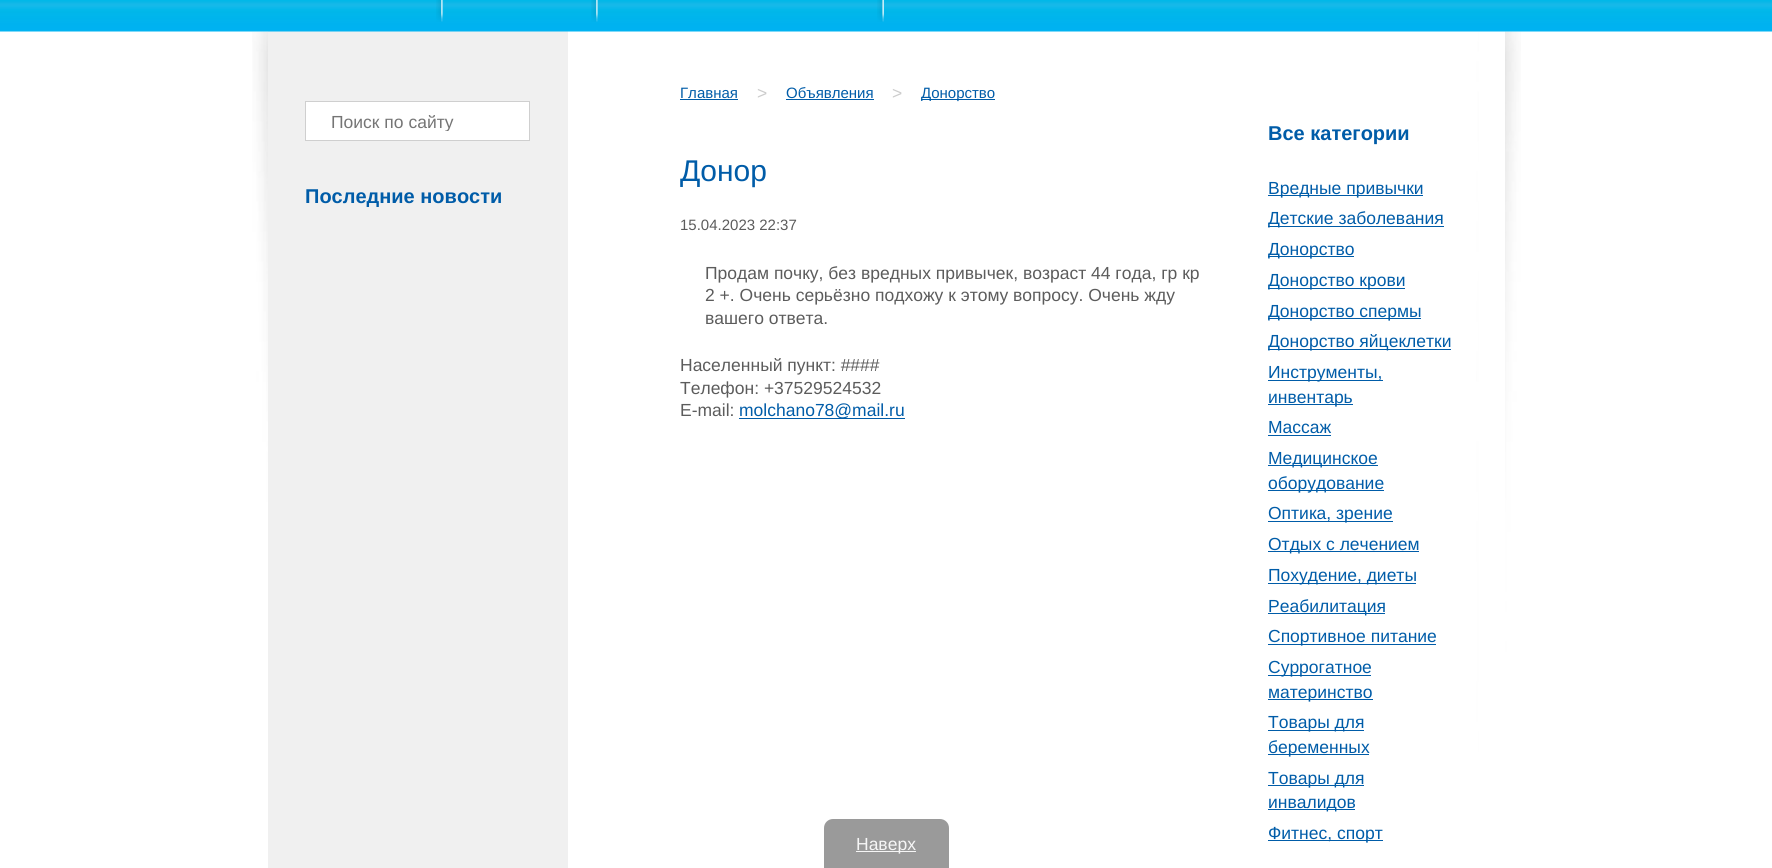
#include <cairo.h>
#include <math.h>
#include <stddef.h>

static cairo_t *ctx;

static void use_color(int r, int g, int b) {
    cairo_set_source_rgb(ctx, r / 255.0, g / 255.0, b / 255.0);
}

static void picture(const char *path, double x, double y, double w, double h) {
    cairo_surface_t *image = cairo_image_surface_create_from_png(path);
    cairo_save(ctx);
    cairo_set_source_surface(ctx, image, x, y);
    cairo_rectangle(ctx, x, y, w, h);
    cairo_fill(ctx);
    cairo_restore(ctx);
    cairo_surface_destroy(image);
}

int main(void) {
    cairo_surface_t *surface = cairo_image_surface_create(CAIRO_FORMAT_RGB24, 1772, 868);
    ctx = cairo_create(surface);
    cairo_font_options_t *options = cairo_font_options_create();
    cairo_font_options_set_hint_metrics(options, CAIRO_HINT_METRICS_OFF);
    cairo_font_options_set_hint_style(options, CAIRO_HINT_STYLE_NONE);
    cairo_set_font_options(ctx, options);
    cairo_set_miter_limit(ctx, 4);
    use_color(255, 255, 255);
    cairo_paint(ctx);
    picture("img1.png", 252, 31, 1269, 721);
    use_color(240, 240, 240);
    cairo_rectangle(ctx, 268, 31, 300, 837);
    cairo_fill(ctx);
    use_color(255, 255, 255);
    cairo_rectangle(ctx, 1479, 31, 26, 721);
    cairo_fill(ctx);
    picture("img2.png", 0, 0, 1772, 32);
    picture("img3.png", 436, 0, 7, 22);
    picture("img4.png", 591, 0, 7, 22);
    picture("img5.png", 877, 0, 7, 22);
    cairo_rectangle(ctx, 305.5, 101.5, 224, 39);
    cairo_fill_preserve(ctx);
    use_color(207, 207, 207);
    cairo_set_line_width(ctx, 1);
    cairo_stroke(ctx);
    cairo_save(ctx);
    cairo_rectangle(ctx, 331, 111, 173, 20);
    cairo_clip(ctx);
    cairo_select_font_face(ctx, "Liberation Sans", CAIRO_FONT_SLANT_NORMAL, CAIRO_FONT_WEIGHT_NORMAL);
    cairo_set_font_size(ctx, 17.5);
    use_color(117, 117, 117);
    cairo_move_to(ctx, 331, 128);
    cairo_show_text(ctx, "Поиск по сайту");
    cairo_restore(ctx);
    cairo_select_font_face(ctx, "Liberation Sans", CAIRO_FONT_SLANT_NORMAL, CAIRO_FONT_WEIGHT_BOLD);
    cairo_set_font_size(ctx, 20);
    use_color(0, 92, 168);
    cairo_move_to(ctx, 305, 203);
    cairo_show_text(ctx, "Последние новости");
    cairo_select_font_face(ctx, "Liberation Sans", CAIRO_FONT_SLANT_NORMAL, CAIRO_FONT_WEIGHT_NORMAL);
    cairo_set_font_size(ctx, 15);
    cairo_move_to(ctx, 680, 98);
    cairo_show_text(ctx, "Главная");
    cairo_rectangle(ctx, 680, 99, 58, 1);
    cairo_fill(ctx);
    cairo_set_font_size(ctx, 17.5);
    use_color(204, 204, 204);
    cairo_move_to(ctx, 757, 99);
    cairo_show_text(ctx, ">");
    cairo_set_font_size(ctx, 15);
    use_color(0, 92, 168);
    cairo_move_to(ctx, 786, 98);
    cairo_show_text(ctx, "Объявления");
    cairo_rectangle(ctx, 786, 99, 88, 1);
    cairo_fill(ctx);
    cairo_set_font_size(ctx, 17.5);
    use_color(204, 204, 204);
    cairo_move_to(ctx, 892, 99);
    cairo_show_text(ctx, ">");
    use_color(0, 92, 168);
    cairo_rectangle(ctx, 921, 99, 74, 1);
    cairo_fill(ctx);
    cairo_set_font_size(ctx, 15);
    cairo_move_to(ctx, 921, 98);
    cairo_show_text(ctx, "Донорство");
    cairo_set_font_size(ctx, 30);
    cairo_move_to(ctx, 680, 181);
    cairo_show_text(ctx, "Донор");
    cairo_set_font_size(ctx, 15);
    use_color(92, 92, 92);
    cairo_move_to(ctx, 680, 230);
    cairo_show_text(ctx, "15.04.2023 22:37");
    cairo_set_font_size(ctx, 17.5);
    cairo_move_to(ctx, 705, 279);
    cairo_show_text(ctx, "Продам почку, без вредных привычек, возраст 44 года, гр кр");
    cairo_move_to(ctx, 705, 301);
    cairo_show_text(ctx, "2 +. Очень серьёзно подхожу к этому вопросу. Очень жду");
    cairo_move_to(ctx, 705, 324);
    cairo_show_text(ctx, "вашего ответа.");
    cairo_move_to(ctx, 680, 371);
    cairo_show_text(ctx, "Населенный пункт: ####");
    cairo_move_to(ctx, 680, 394);
    cairo_show_text(ctx, "Телефон: +37529524532");
    cairo_move_to(ctx, 680, 416);
    cairo_show_text(ctx, "E-mail:");
    use_color(0, 92, 168);
    cairo_rectangle(ctx, 739, 418, 166, 1);
    cairo_fill(ctx);
    cairo_move_to(ctx, 739, 416);
    cairo_show_text(ctx, "molchano78@mail.ru");
    cairo_select_font_face(ctx, "Liberation Sans", CAIRO_FONT_SLANT_NORMAL, CAIRO_FONT_WEIGHT_BOLD);
    cairo_set_font_size(ctx, 20);
    cairo_move_to(ctx, 1268, 140);
    cairo_show_text(ctx, "Все категории");
    cairo_rectangle(ctx, 1268, 195, 155, 1);
    cairo_fill(ctx);
    cairo_select_font_face(ctx, "Liberation Sans", CAIRO_FONT_SLANT_NORMAL, CAIRO_FONT_WEIGHT_NORMAL);
    cairo_set_font_size(ctx, 17.5);
    cairo_move_to(ctx, 1268, 194);
    cairo_show_text(ctx, "Вредные привычки");
    cairo_rectangle(ctx, 1268, 226, 176, 1);
    cairo_fill(ctx);
    cairo_move_to(ctx, 1268, 224);
    cairo_show_text(ctx, "Детские заболевания");
    cairo_rectangle(ctx, 1268, 256, 86, 1);
    cairo_fill(ctx);
    cairo_move_to(ctx, 1268, 255);
    cairo_show_text(ctx, "Донорство");
    cairo_rectangle(ctx, 1268, 288, 137, 1);
    cairo_fill(ctx);
    cairo_move_to(ctx, 1268, 286);
    cairo_show_text(ctx, "Донорство крови");
    cairo_rectangle(ctx, 1268, 318, 153, 1);
    cairo_fill(ctx);
    cairo_move_to(ctx, 1268, 317);
    cairo_show_text(ctx, "Донорство спермы");
    cairo_rectangle(ctx, 1268, 349, 183, 1);
    cairo_fill(ctx);
    cairo_move_to(ctx, 1268, 347);
    cairo_show_text(ctx, "Донорство яйцеклетки");
    cairo_rectangle(ctx, 1268, 380, 115, 1);
    cairo_fill(ctx);
    cairo_move_to(ctx, 1268, 378);
    cairo_show_text(ctx, "Инструменты,");
    cairo_rectangle(ctx, 1268, 404, 85, 1);
    cairo_fill(ctx);
    cairo_move_to(ctx, 1268, 403);
    cairo_show_text(ctx, "инвентарь");
    cairo_move_to(ctx, 1268, 433);
    cairo_show_text(ctx, "Массаж");
    cairo_rectangle(ctx, 1268, 435, 63, 1);
    cairo_fill(ctx);
    cairo_rectangle(ctx, 1268, 465, 110, 1);
    cairo_fill(ctx);
    cairo_move_to(ctx, 1268, 464);
    cairo_show_text(ctx, "Медицинское");
    cairo_rectangle(ctx, 1268, 490, 116, 1);
    cairo_fill(ctx);
    cairo_move_to(ctx, 1268, 489);
    cairo_show_text(ctx, "оборудование");
    cairo_rectangle(ctx, 1268, 521, 125, 1);
    cairo_fill(ctx);
    cairo_move_to(ctx, 1268, 519);
    cairo_show_text(ctx, "Оптика, зрение");
    cairo_rectangle(ctx, 1268, 551, 151, 1);
    cairo_fill(ctx);
    cairo_move_to(ctx, 1268, 550);
    cairo_show_text(ctx, "Отдых с лечением");
    cairo_rectangle(ctx, 1268, 583, 148, 1);
    cairo_fill(ctx);
    cairo_move_to(ctx, 1268, 581);
    cairo_show_text(ctx, "Похудение, диеты");
    cairo_rectangle(ctx, 1268, 613, 117, 1);
    cairo_fill(ctx);
    cairo_move_to(ctx, 1268, 612);
    cairo_show_text(ctx, "Реабилитация");
    cairo_rectangle(ctx, 1268, 644, 168, 1);
    cairo_fill(ctx);
    cairo_move_to(ctx, 1268, 642);
    cairo_show_text(ctx, "Спортивное питание");
    cairo_rectangle(ctx, 1268, 675, 103, 1);
    cairo_fill(ctx);
    cairo_move_to(ctx, 1268, 673);
    cairo_show_text(ctx, "Суррогатное");
    cairo_rectangle(ctx, 1268, 699, 105, 1);
    cairo_fill(ctx);
    cairo_move_to(ctx, 1268, 698);
    cairo_show_text(ctx, "материнство");
    cairo_rectangle(ctx, 1268, 730, 96, 1);
    cairo_fill(ctx);
    cairo_move_to(ctx, 1268, 728);
    cairo_show_text(ctx, "Товары для");
    cairo_rectangle(ctx, 1268, 754, 101, 1);
    cairo_fill(ctx);
    cairo_move_to(ctx, 1268, 753);
    cairo_show_text(ctx, "беременных");
    cairo_rectangle(ctx, 1268, 785, 96, 1);
    cairo_fill(ctx);
    cairo_move_to(ctx, 1268, 784);
    cairo_show_text(ctx, "Товары для");
    cairo_rectangle(ctx, 1268, 809, 87, 1);
    cairo_fill(ctx);
    cairo_move_to(ctx, 1268, 808);
    cairo_show_text(ctx, "инвалидов");
    cairo_rectangle(ctx, 1268, 840, 115, 1);
    cairo_fill(ctx);
    cairo_move_to(ctx, 1268, 839);
    cairo_show_text(ctx, "Фитнес, спорт");
    use_color(154, 154, 154);
    cairo_new_path(ctx);
    cairo_move_to(ctx, 833, 819);
    cairo_line_to(ctx, 940, 819);
    cairo_curve_to(ctx, 945, 819, 949, 823, 949, 828);
    cairo_line_to(ctx, 949, 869);
    cairo_line_to(ctx, 824, 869);
    cairo_line_to(ctx, 824, 828);
    cairo_curve_to(ctx, 824, 823, 828, 819, 833, 819);
    cairo_close_path(ctx);
    cairo_fill(ctx);
    use_color(246, 246, 246);
    cairo_rectangle(ctx, 856, 851, 60, 1);
    cairo_fill(ctx);
    cairo_move_to(ctx, 856, 850);
    cairo_show_text(ctx, "Наверх");
    cairo_surface_write_to_png(surface, "result.png");
    cairo_font_options_destroy(options);
    cairo_destroy(ctx);
    cairo_surface_destroy(surface);
    return 0;
}
